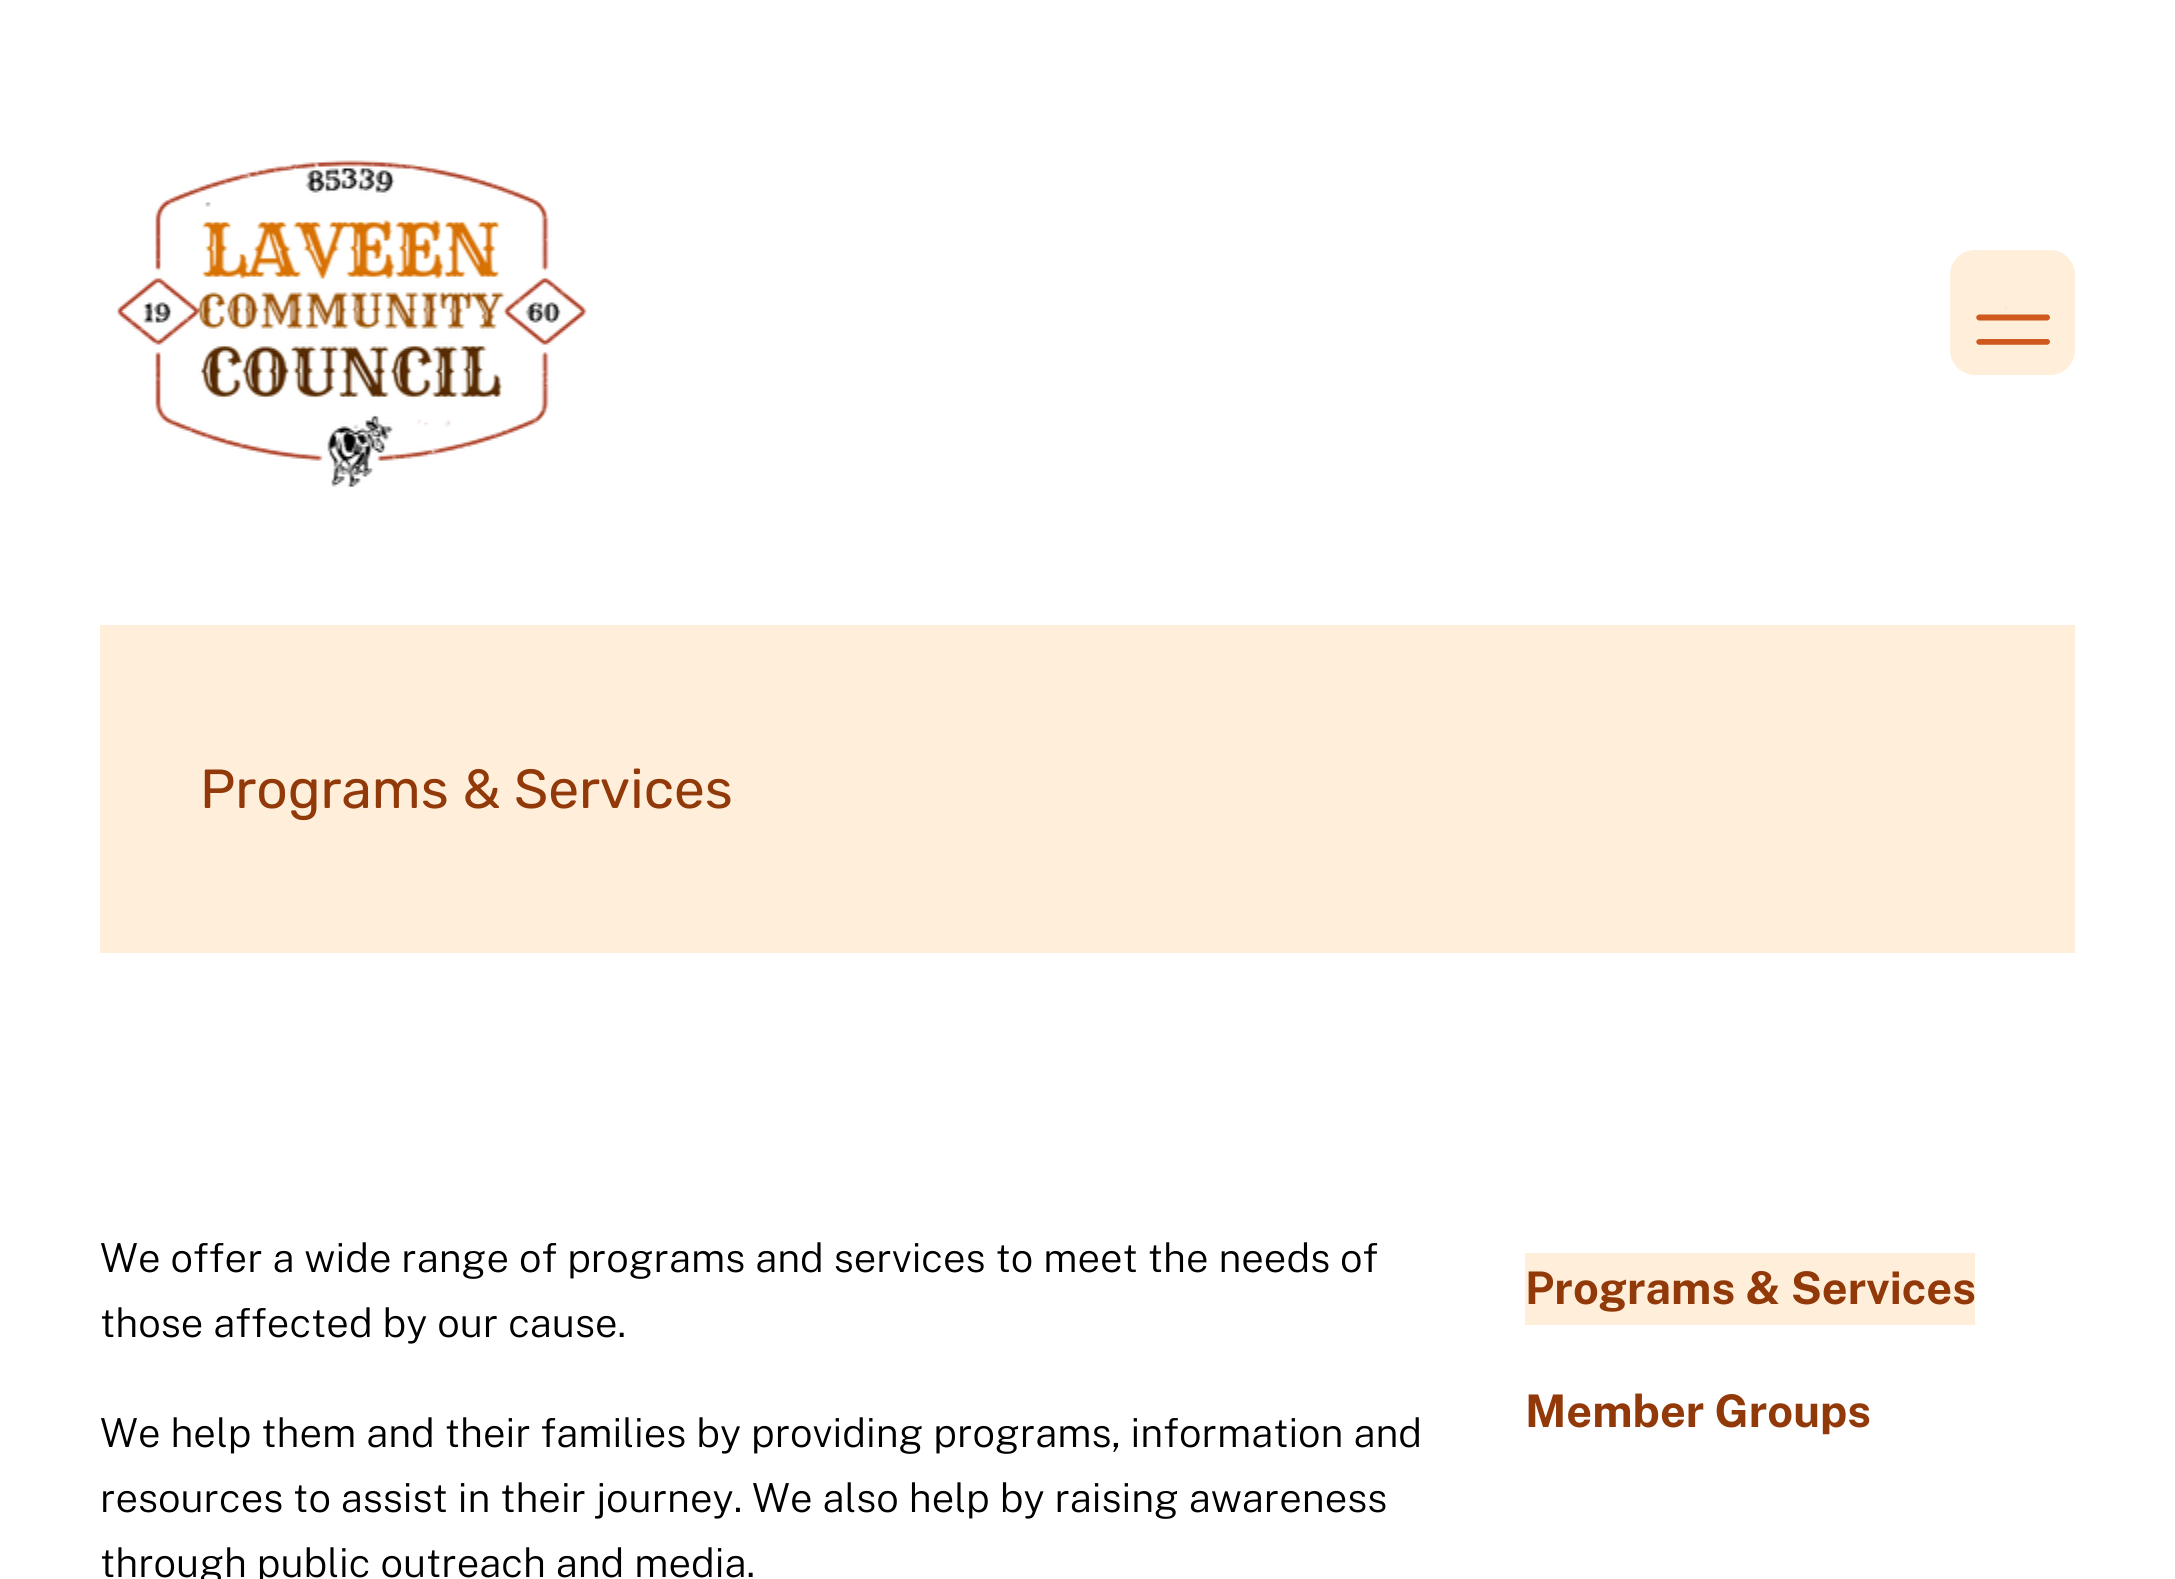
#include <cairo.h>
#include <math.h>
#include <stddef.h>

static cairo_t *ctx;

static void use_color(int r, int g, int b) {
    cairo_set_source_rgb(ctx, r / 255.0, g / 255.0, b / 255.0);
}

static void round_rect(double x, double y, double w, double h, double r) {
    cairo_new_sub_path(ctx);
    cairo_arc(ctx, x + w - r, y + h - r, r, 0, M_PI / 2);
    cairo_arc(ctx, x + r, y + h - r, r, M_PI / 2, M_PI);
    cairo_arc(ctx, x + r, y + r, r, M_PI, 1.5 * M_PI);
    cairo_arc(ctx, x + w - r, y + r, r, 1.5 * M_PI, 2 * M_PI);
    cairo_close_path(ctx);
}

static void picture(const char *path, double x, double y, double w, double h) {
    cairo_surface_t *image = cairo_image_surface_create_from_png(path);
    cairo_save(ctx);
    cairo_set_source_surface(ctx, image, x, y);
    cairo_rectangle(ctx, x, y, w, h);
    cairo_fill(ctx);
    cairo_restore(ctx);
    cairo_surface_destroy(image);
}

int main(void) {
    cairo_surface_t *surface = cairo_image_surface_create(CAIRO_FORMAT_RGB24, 2175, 1579);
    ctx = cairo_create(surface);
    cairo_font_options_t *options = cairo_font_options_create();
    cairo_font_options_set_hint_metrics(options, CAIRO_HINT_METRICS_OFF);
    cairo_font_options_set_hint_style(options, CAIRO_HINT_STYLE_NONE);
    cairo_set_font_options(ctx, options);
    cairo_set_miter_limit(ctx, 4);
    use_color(255, 255, 255);
    cairo_paint(ctx);
    picture("img1.png", 117, 160, 470, 329);
    use_color(255, 239, 218);
    round_rect(1950, 250, 125, 125, 25);
    cairo_fill(ctx);
    picture("img2.png", 1976, 308, 74, 37);
    cairo_rectangle(ctx, 100, 625, 1975, 328);
    cairo_fill(ctx);
    cairo_select_font_face(ctx, "Rubik", CAIRO_FONT_SLANT_NORMAL, CAIRO_FONT_WEIGHT_NORMAL);
    cairo_set_font_size(ctx, 55);
    use_color(146, 57, 10);
    cairo_move_to(ctx, 200, 808);
    cairo_show_text(ctx, "Programs & Services");
    cairo_select_font_face(ctx, "Public Sans Light", CAIRO_FONT_SLANT_NORMAL, CAIRO_FONT_WEIGHT_NORMAL);
    cairo_set_font_size(ctx, 40);
    use_color(0, 0, 0);
    cairo_move_to(ctx, 100, 1272);
    cairo_show_text(ctx, "We offer a wide range of programs and services to meet the needs of");
    cairo_move_to(ctx, 100, 1337);
    cairo_show_text(ctx, "those affected by our cause.");
    cairo_move_to(ctx, 100, 1447);
    cairo_show_text(ctx, "We help them and their families by providing programs, information and");
    cairo_move_to(ctx, 100, 1512);
    cairo_show_text(ctx, "resources to assist in their journey. We also help by raising awareness");
    cairo_move_to(ctx, 100, 1577);
    cairo_show_text(ctx, "through public outreach and media.");
    use_color(255, 239, 218);
    cairo_rectangle(ctx, 1525, 1253, 450, 72);
    cairo_fill(ctx);
    cairo_select_font_face(ctx, "Public Sans", CAIRO_FONT_SLANT_NORMAL, CAIRO_FONT_WEIGHT_BOLD);
    cairo_set_font_size(ctx, 45);
    use_color(146, 57, 10);
    cairo_move_to(ctx, 1525, 1304);
    cairo_show_text(ctx, "Programs & Services");
    cairo_move_to(ctx, 1525, 1427);
    cairo_show_text(ctx, "Member Groups");
    cairo_surface_write_to_png(surface, "result.png");
    cairo_font_options_destroy(options);
    cairo_destroy(ctx);
    cairo_surface_destroy(surface);
    return 0;
}
